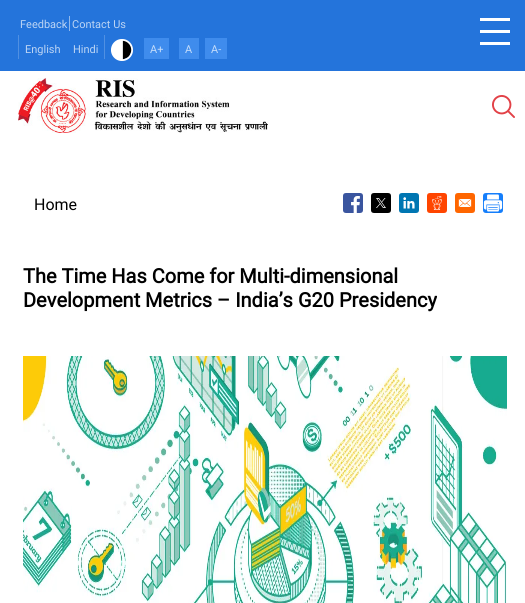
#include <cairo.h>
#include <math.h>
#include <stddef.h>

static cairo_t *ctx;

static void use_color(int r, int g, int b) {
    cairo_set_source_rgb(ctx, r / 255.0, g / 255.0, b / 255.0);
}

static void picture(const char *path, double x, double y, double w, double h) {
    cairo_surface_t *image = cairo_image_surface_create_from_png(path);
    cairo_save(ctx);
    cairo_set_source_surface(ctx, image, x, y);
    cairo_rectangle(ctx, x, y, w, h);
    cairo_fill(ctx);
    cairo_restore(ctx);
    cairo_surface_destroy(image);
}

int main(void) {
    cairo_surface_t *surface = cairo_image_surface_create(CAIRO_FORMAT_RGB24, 525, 603);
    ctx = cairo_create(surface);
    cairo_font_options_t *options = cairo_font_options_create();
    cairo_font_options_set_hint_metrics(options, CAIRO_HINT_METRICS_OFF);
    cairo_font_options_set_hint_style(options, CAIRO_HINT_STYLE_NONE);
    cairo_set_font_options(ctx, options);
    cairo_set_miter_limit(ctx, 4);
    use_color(255, 255, 255);
    cairo_paint(ctx);
    use_color(36, 116, 219);
    cairo_rectangle(ctx, 0, 0, 525, 71);
    cairo_fill(ctx);
    use_color(255, 255, 255);
    cairo_rectangle(ctx, 480, 42, 30, 3);
    cairo_fill(ctx);
    cairo_rectangle(ctx, 480, 18, 30, 3);
    cairo_fill(ctx);
    cairo_rectangle(ctx, 480, 30, 30, 3);
    cairo_fill(ctx);
    picture("img1.png", 18, 78, 250, 55);
    cairo_select_font_face(ctx, "Roboto", CAIRO_FONT_SLANT_NORMAL, CAIRO_FONT_WEIGHT_NORMAL);
    cairo_set_font_size(ctx, 11);
    use_color(189, 213, 244);
    cairo_move_to(ctx, 20, 28);
    cairo_show_text(ctx, "Feedback");
    use_color(146, 186, 237);
    cairo_rectangle(ctx, 69, 16, 1, 15);
    cairo_fill(ctx);
    use_color(189, 213, 244);
    cairo_move_to(ctx, 72, 28);
    cairo_show_text(ctx, "Contact Us");
    use_color(80, 144, 226);
    cairo_rectangle(ctx, 104, 35, 1, 24);
    cairo_fill(ctx);
    cairo_rectangle(ctx, 18, 35, 1, 24);
    cairo_fill(ctx);
    use_color(189, 213, 244);
    cairo_move_to(ctx, 25, 53);
    cairo_show_text(ctx, "English");
    cairo_move_to(ctx, 73, 53);
    cairo_show_text(ctx, "Hindi");
    picture("img2.png", 111, 39, 22, 22);
    use_color(63, 140, 237);
    cairo_rectangle(ctx, 144, 38, 25, 21);
    cairo_fill(ctx);
    use_color(197, 221, 250);
    cairo_move_to(ctx, 150, 53);
    cairo_show_text(ctx, "A+");
    use_color(63, 140, 237);
    cairo_rectangle(ctx, 179, 38, 20, 21);
    cairo_fill(ctx);
    use_color(197, 221, 250);
    cairo_move_to(ctx, 185, 53);
    cairo_show_text(ctx, "A");
    use_color(63, 140, 237);
    cairo_rectangle(ctx, 205, 38, 22, 21);
    cairo_fill(ctx);
    use_color(197, 221, 250);
    cairo_move_to(ctx, 211, 53);
    cairo_show_text(ctx, "A-");
    picture("img3.png", 492, 95, 23, 23);
    cairo_set_font_size(ctx, 16);
    use_color(0, 0, 0);
    cairo_move_to(ctx, 34, 210);
    cairo_show_text(ctx, "Home");
    picture("img4.png", 343, 193, 20, 20);
    picture("img5.png", 371, 193, 20, 20);
    picture("img6.png", 399, 193, 20, 20);
    picture("img7.png", 427, 193, 20, 20);
    picture("img8.png", 455, 193, 20, 20);
    picture("img9.png", 483, 193, 20, 20);
    cairo_select_font_face(ctx, "Roboto", CAIRO_FONT_SLANT_NORMAL, CAIRO_FONT_WEIGHT_BOLD);
    cairo_set_font_size(ctx, 20);
    cairo_move_to(ctx, 23, 283);
    cairo_show_text(ctx, "The Time Has Come for Multi-dimensional");
    cairo_move_to(ctx, 23, 307);
    cairo_show_text(ctx, "Development Metrics – India’s G20 Presidency");
    picture("img10.png", 23, 356, 484, 247);
    cairo_surface_write_to_png(surface, "result.png");
    cairo_font_options_destroy(options);
    cairo_destroy(ctx);
    cairo_surface_destroy(surface);
    return 0;
}
